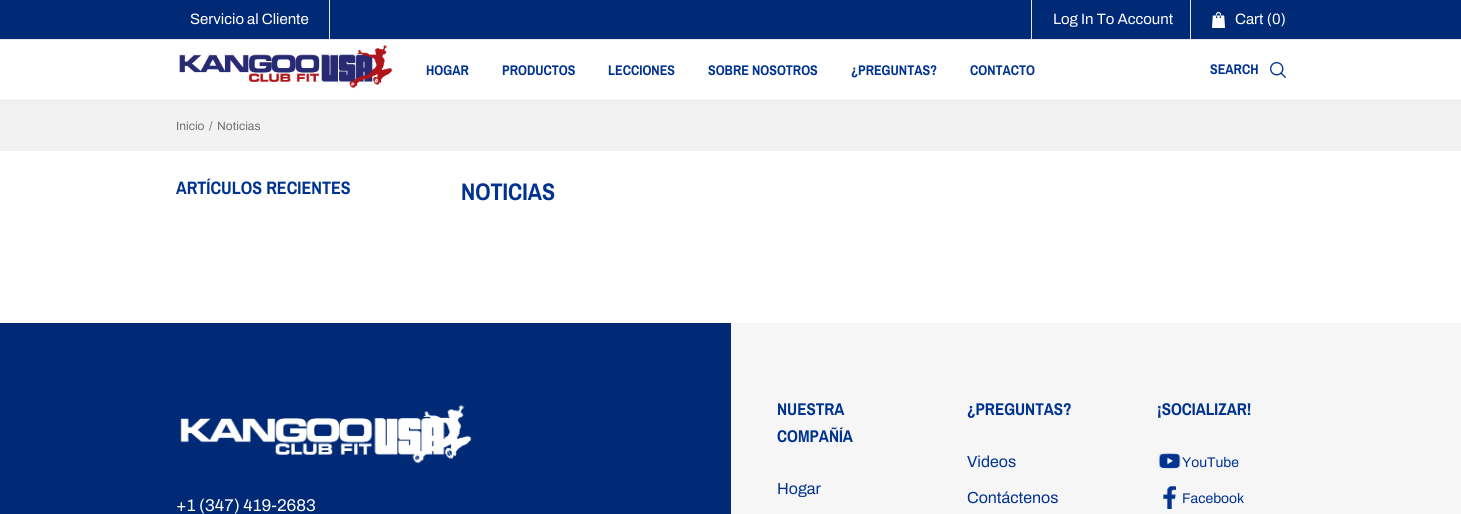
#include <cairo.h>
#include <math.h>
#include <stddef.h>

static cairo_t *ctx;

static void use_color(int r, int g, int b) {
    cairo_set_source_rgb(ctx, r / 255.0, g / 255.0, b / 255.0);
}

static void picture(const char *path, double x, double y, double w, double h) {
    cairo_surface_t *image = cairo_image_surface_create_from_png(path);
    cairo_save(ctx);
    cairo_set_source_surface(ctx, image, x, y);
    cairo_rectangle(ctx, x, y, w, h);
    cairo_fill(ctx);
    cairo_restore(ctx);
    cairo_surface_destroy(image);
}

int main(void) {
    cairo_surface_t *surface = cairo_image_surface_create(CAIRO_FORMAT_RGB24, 1461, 514);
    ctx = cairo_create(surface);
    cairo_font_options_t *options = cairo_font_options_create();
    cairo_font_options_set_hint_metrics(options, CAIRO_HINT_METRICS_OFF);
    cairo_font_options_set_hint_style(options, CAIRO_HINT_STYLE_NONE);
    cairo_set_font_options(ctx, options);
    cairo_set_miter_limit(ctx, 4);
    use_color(255, 255, 255);
    cairo_paint(ctx);
    use_color(1, 42, 118);
    cairo_rectangle(ctx, 0, 0, 1461, 39);
    cairo_fill(ctx);
    use_color(230, 230, 230);
    cairo_rectangle(ctx, 0, 39, 1461, 1);
    cairo_fill(ctx);
    cairo_rectangle(ctx, 329, 0, 1, 39);
    cairo_fill(ctx);
    cairo_select_font_face(ctx, "Archivo", CAIRO_FONT_SLANT_NORMAL, CAIRO_FONT_WEIGHT_NORMAL);
    cairo_set_font_size(ctx, 15);
    use_color(255, 255, 255);
    cairo_move_to(ctx, 190, 24);
    cairo_show_text(ctx, "Servicio al Cliente");
    use_color(230, 230, 230);
    cairo_rectangle(ctx, 1031, 0, 1, 39);
    cairo_fill(ctx);
    use_color(255, 255, 255);
    cairo_move_to(ctx, 1053, 24);
    cairo_show_text(ctx, "Log In To Account");
    use_color(230, 230, 230);
    cairo_rectangle(ctx, 1190, 0, 1, 39);
    cairo_fill(ctx);
    picture("img1.png", 1212, 12, 13, 16);
    use_color(255, 255, 255);
    cairo_move_to(ctx, 1235, 24);
    cairo_show_text(ctx, "Cart (0)");
    use_color(230, 230, 230);
    cairo_rectangle(ctx, 0, 100, 1461, 1);
    cairo_fill(ctx);
    picture("img2.png", 179, 45, 214, 44);
    cairo_select_font_face(ctx, "Archivo Narrow", CAIRO_FONT_SLANT_NORMAL, CAIRO_FONT_WEIGHT_BOLD);
    cairo_set_font_size(ctx, 14);
    use_color(0, 50, 144);
    cairo_move_to(ctx, 426, 75);
    cairo_show_text(ctx, "HOGAR");
    cairo_move_to(ctx, 502, 75);
    cairo_show_text(ctx, "PRODUCTOS");
    cairo_move_to(ctx, 608, 75);
    cairo_show_text(ctx, "LECCIONES");
    cairo_move_to(ctx, 708, 75);
    cairo_show_text(ctx, "SOBRE NOSOTROS");
    cairo_move_to(ctx, 851, 75);
    cairo_show_text(ctx, "¿PREGUNTAS?");
    cairo_move_to(ctx, 970, 75);
    cairo_show_text(ctx, "CONTACTO");
    cairo_move_to(ctx, 1210, 74);
    cairo_show_text(ctx, "SEARCH");
    picture("img3.png", 1270, 62, 16, 16);
    use_color(242, 242, 242);
    cairo_rectangle(ctx, 0, 101, 1461, 50);
    cairo_fill(ctx);
    cairo_select_font_face(ctx, "Archivo", CAIRO_FONT_SLANT_NORMAL, CAIRO_FONT_WEIGHT_NORMAL);
    cairo_set_font_size(ctx, 12);
    use_color(112, 112, 112);
    cairo_move_to(ctx, 176, 130);
    cairo_show_text(ctx, "Inicio");
    cairo_move_to(ctx, 209, 130);
    cairo_show_text(ctx, "/");
    cairo_move_to(ctx, 217, 130);
    cairo_show_text(ctx, "Noticias");
    cairo_select_font_face(ctx, "Archivo Narrow", CAIRO_FONT_SLANT_NORMAL, CAIRO_FONT_WEIGHT_BOLD);
    cairo_set_font_size(ctx, 18);
    use_color(0, 50, 144);
    cairo_move_to(ctx, 176, 194);
    cairo_show_text(ctx, "ARTÍCULOS RECIENTES");
    cairo_set_font_size(ctx, 24);
    cairo_move_to(ctx, 461, 200);
    cairo_show_text(ctx, "NOTICIAS");
    use_color(1, 42, 118);
    cairo_rectangle(ctx, 0, 323, 731, 191);
    cairo_fill(ctx);
    use_color(246, 246, 246);
    cairo_rectangle(ctx, 731, 323, 730, 191);
    cairo_fill(ctx);
    cairo_set_font_size(ctx, 17);
    use_color(0, 50, 144);
    cairo_move_to(ctx, 777, 415);
    cairo_show_text(ctx, "NUESTRA");
    cairo_move_to(ctx, 777, 442);
    cairo_show_text(ctx, "COMPAÑÍA");
    cairo_select_font_face(ctx, "Archivo", CAIRO_FONT_SLANT_NORMAL, CAIRO_FONT_WEIGHT_NORMAL);
    cairo_set_font_size(ctx, 16);
    cairo_move_to(ctx, 777, 494);
    cairo_show_text(ctx, "Hogar");
    cairo_select_font_face(ctx, "Archivo Narrow", CAIRO_FONT_SLANT_NORMAL, CAIRO_FONT_WEIGHT_BOLD);
    cairo_set_font_size(ctx, 17);
    cairo_move_to(ctx, 967, 415);
    cairo_show_text(ctx, "¿PREGUNTAS?");
    cairo_select_font_face(ctx, "Archivo", CAIRO_FONT_SLANT_NORMAL, CAIRO_FONT_WEIGHT_NORMAL);
    cairo_set_font_size(ctx, 16);
    cairo_move_to(ctx, 967, 467);
    cairo_show_text(ctx, "Videos");
    cairo_move_to(ctx, 967, 503);
    cairo_show_text(ctx, "Contáctenos");
    cairo_select_font_face(ctx, "Archivo Narrow", CAIRO_FONT_SLANT_NORMAL, CAIRO_FONT_WEIGHT_BOLD);
    cairo_set_font_size(ctx, 17);
    cairo_move_to(ctx, 1157, 415);
    cairo_show_text(ctx, "¡SOCIALIZAR!");
    picture("img4.png", 1158, 453, 23, 16);
    cairo_select_font_face(ctx, "Archivo", CAIRO_FONT_SLANT_NORMAL, CAIRO_FONT_WEIGHT_NORMAL);
    cairo_set_font_size(ctx, 14);
    cairo_move_to(ctx, 1182, 467);
    cairo_show_text(ctx, "YouTube");
    picture("img5.png", 1163, 485, 13, 24);
    cairo_move_to(ctx, 1182, 503);
    cairo_show_text(ctx, "Facebook");
    picture("img6.png", 180, 404, 292, 60);
    cairo_set_font_size(ctx, 17);
    use_color(255, 255, 255);
    cairo_move_to(ctx, 176, 511);
    cairo_show_text(ctx, "+1 (347) 419-2683");
    cairo_surface_write_to_png(surface, "result.png");
    cairo_font_options_destroy(options);
    cairo_destroy(ctx);
    cairo_surface_destroy(surface);
    return 0;
}
